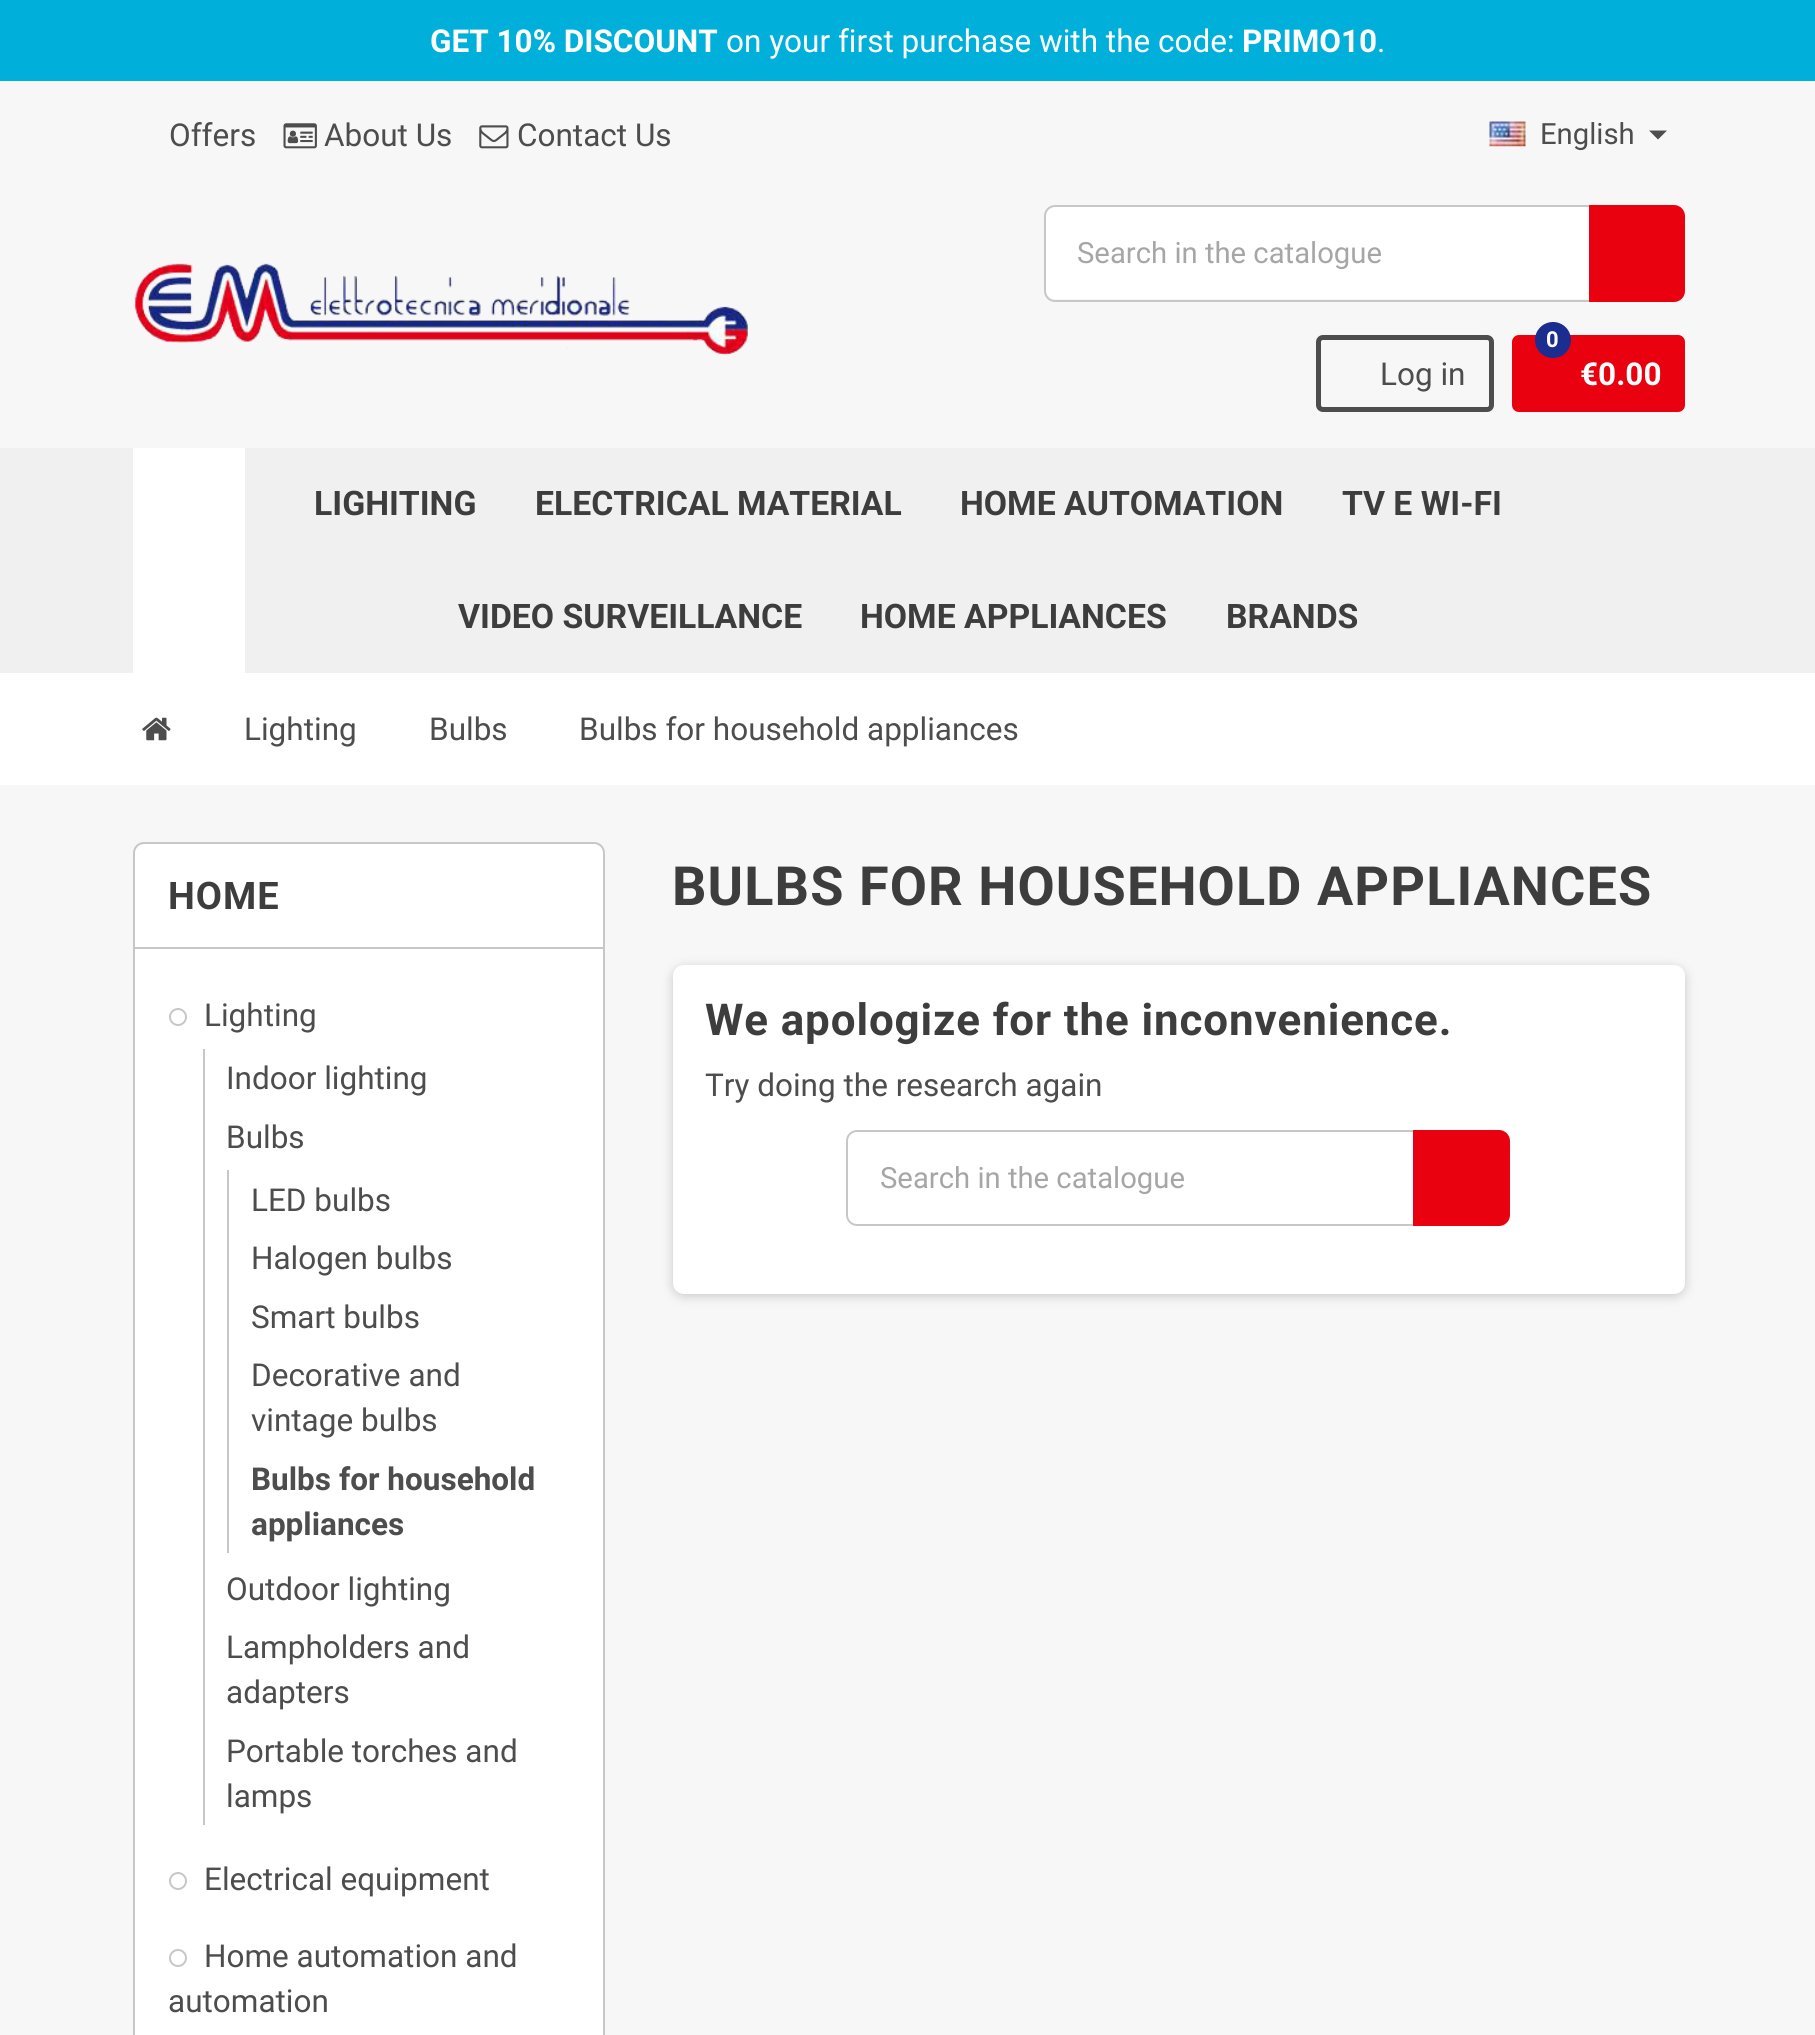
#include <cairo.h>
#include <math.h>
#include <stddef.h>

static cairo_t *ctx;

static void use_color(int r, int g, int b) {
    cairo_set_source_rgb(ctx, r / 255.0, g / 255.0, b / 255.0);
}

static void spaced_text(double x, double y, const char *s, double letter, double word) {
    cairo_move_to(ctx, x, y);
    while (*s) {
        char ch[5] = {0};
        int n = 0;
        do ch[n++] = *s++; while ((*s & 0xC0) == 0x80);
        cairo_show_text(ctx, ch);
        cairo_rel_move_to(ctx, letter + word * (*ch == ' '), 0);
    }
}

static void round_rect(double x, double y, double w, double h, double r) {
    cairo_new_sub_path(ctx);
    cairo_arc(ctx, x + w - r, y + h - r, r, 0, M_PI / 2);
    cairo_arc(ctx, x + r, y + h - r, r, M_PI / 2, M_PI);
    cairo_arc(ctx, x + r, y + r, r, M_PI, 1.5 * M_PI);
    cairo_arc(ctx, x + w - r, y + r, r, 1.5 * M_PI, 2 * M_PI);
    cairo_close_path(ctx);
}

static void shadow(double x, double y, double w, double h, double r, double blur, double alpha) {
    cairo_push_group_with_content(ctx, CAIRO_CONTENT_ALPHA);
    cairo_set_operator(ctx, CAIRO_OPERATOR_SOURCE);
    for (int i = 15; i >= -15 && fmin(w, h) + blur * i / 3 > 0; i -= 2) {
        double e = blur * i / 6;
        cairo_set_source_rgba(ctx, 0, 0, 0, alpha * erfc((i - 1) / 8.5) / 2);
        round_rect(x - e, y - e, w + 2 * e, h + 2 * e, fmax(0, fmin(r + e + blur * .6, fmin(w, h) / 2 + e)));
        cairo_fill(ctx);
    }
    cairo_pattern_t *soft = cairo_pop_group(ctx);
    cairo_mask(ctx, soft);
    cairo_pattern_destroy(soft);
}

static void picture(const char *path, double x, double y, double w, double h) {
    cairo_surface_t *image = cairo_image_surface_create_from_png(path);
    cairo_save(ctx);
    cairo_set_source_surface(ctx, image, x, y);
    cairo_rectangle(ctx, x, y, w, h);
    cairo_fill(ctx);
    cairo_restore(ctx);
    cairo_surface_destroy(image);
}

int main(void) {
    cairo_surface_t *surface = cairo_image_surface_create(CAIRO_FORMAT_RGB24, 1815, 2035);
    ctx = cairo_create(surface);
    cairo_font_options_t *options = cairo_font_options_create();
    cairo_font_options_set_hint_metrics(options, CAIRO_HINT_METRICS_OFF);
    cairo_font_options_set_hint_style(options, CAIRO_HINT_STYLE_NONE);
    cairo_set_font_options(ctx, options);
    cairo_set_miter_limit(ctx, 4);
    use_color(247, 247, 247);
    cairo_paint(ctx);
    use_color(0, 176, 219);
    cairo_rectangle(ctx, 0, 0, 1815, 81);
    cairo_fill(ctx);
    cairo_select_font_face(ctx, "Roboto", CAIRO_FONT_SLANT_NORMAL, CAIRO_FONT_WEIGHT_BOLD);
    cairo_set_font_size(ctx, 31.5);
    use_color(255, 255, 255);
    cairo_move_to(ctx, 430, 52);
    cairo_show_text(ctx, "GET 10% DISCOUNT");
    cairo_select_font_face(ctx, "Roboto", CAIRO_FONT_SLANT_NORMAL, CAIRO_FONT_WEIGHT_NORMAL);
    cairo_move_to(ctx, 726, 52);
    cairo_show_text(ctx, "on your first purchase with the code:");
    cairo_select_font_face(ctx, "Roboto", CAIRO_FONT_SLANT_NORMAL, CAIRO_FONT_WEIGHT_BOLD);
    cairo_move_to(ctx, 1242, 52);
    cairo_show_text(ctx, "PRIMO10");
    cairo_select_font_face(ctx, "Roboto", CAIRO_FONT_SLANT_NORMAL, CAIRO_FONT_WEIGHT_NORMAL);
    cairo_move_to(ctx, 1377, 52);
    cairo_show_text(ctx, ".");
    use_color(77, 77, 77);
    cairo_move_to(ctx, 169, 146);
    cairo_show_text(ctx, "Offers");
    picture("img1.png", 283, 123, 34, 26);
    cairo_move_to(ctx, 324, 146);
    cairo_show_text(ctx, "About Us");
    picture("img2.png", 479, 125, 30, 24);
    cairo_move_to(ctx, 517, 146);
    cairo_show_text(ctx, "Contact Us");
    picture("img3.png", 1489, 121, 37, 26);
    cairo_set_font_size(ctx, 29.25);
    cairo_move_to(ctx, 1540, 144);
    cairo_show_text(ctx, "English");
    cairo_new_path(ctx);
    cairo_move_to(ctx, 1649, 130.5);
    cairo_line_to(ctx, 1667, 130.5);
    cairo_line_to(ctx, 1658, 139.5);
    cairo_close_path(ctx);
    cairo_fill(ctx);
    picture("img4.png", 135, 263, 613, 92);
    use_color(255, 255, 255);
    round_rect(1046, 207, 635, 92, 9);
    cairo_fill(ctx);
    round_rect(1045, 206, 637, 95, 10);
    use_color(199, 199, 199);
    cairo_stroke(ctx);
    use_color(166, 166, 166);
    cairo_move_to(ctx, 1077, 263);
    cairo_show_text(ctx, "Search in the catalogue");
    use_color(233, 1, 15);
    cairo_new_path(ctx);
    cairo_move_to(ctx, 1589, 205);
    cairo_line_to(ctx, 1674, 205);
    cairo_curve_to(ctx, 1680, 205, 1685, 210, 1685, 216);
    cairo_line_to(ctx, 1685, 291);
    cairo_curve_to(ctx, 1685, 297, 1680, 302, 1674, 302);
    cairo_line_to(ctx, 1589, 302);
    cairo_close_path(ctx);
    cairo_fill(ctx);
    round_rect(1318.5, 337.5, 173, 72, 4.5);
    use_color(77, 77, 77);
    cairo_set_line_width(ctx, 5);
    cairo_stroke(ctx);
    cairo_set_font_size(ctx, 31.5);
    cairo_move_to(ctx, 1380, 385);
    cairo_show_text(ctx, "Log in");
    use_color(233, 1, 15);
    round_rect(1512, 335, 173, 77, 7);
    cairo_fill(ctx);
    use_color(27, 45, 142);
    cairo_arc(ctx, 1553, 340, 18, 0, 2 * M_PI);
    cairo_fill(ctx);
    cairo_select_font_face(ctx, "Roboto", CAIRO_FONT_SLANT_NORMAL, CAIRO_FONT_WEIGHT_BOLD);
    cairo_set_font_size(ctx, 22);
    use_color(255, 255, 255);
    cairo_move_to(ctx, 1546, 347);
    cairo_show_text(ctx, "0");
    cairo_set_font_size(ctx, 31.5);
    cairo_move_to(ctx, 1580, 385);
    cairo_show_text(ctx, "€0.00");
    use_color(240, 240, 240);
    cairo_rectangle(ctx, 0, 448, 1815, 225);
    cairo_fill(ctx);
    use_color(255, 255, 255);
    cairo_rectangle(ctx, 133, 448, 112, 225);
    cairo_fill(ctx);
    cairo_select_font_face(ctx, "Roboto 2", CAIRO_FONT_SLANT_NORMAL, CAIRO_FONT_WEIGHT_BOLD);
    cairo_set_font_size(ctx, 33.75);
    use_color(61, 61, 61);
    cairo_move_to(ctx, 314, 515);
    cairo_show_text(ctx, "LIGHITING");
    cairo_move_to(ctx, 535, 515);
    cairo_show_text(ctx, "ELECTRICAL MATERIAL");
    cairo_move_to(ctx, 960, 515);
    cairo_show_text(ctx, "HOME AUTOMATION");
    cairo_move_to(ctx, 1342, 515);
    cairo_show_text(ctx, "TV E WI-FI");
    cairo_move_to(ctx, 458, 628);
    cairo_show_text(ctx, "VIDEO SURVEILLANCE");
    cairo_move_to(ctx, 860, 628);
    cairo_show_text(ctx, "HOME APPLIANCES");
    cairo_move_to(ctx, 1226, 628);
    cairo_show_text(ctx, "BRANDS");
    use_color(255, 255, 255);
    cairo_rectangle(ctx, 0, 673, 1815, 112);
    cairo_fill(ctx);
    picture("img5.png", 142, 717, 29, 24);
    cairo_select_font_face(ctx, "Roboto", CAIRO_FONT_SLANT_NORMAL, CAIRO_FONT_WEIGHT_NORMAL);
    cairo_set_font_size(ctx, 31.5);
    use_color(77, 77, 77);
    cairo_move_to(ctx, 244, 740);
    cairo_show_text(ctx, "Lighting");
    cairo_move_to(ctx, 429, 740);
    cairo_show_text(ctx, "Bulbs");
    cairo_move_to(ctx, 579, 740);
    cairo_show_text(ctx, "Bulbs for household appliances");
    use_color(255, 255, 255);
    round_rect(134, 843, 470, 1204, 10);
    cairo_fill_preserve(ctx);
    use_color(199, 199, 199);
    cairo_set_line_width(ctx, 2);
    cairo_stroke(ctx);
    cairo_rectangle(ctx, 135, 947, 468, 2);
    cairo_fill(ctx);
    cairo_select_font_face(ctx, "Roboto 2", CAIRO_FONT_SLANT_NORMAL, CAIRO_FONT_WEIGHT_BOLD);
    cairo_set_font_size(ctx, 38);
    use_color(61, 61, 61);
    spaced_text(168, 909, "HOME", 1, 0);
    cairo_new_path(ctx);
    cairo_arc(ctx, 178, 1017, 8, 0, 2 * M_PI);
    use_color(199, 199, 199);
    cairo_stroke(ctx);
    cairo_select_font_face(ctx, "Roboto", CAIRO_FONT_SLANT_NORMAL, CAIRO_FONT_WEIGHT_NORMAL);
    cairo_set_font_size(ctx, 31.5);
    use_color(77, 77, 77);
    cairo_move_to(ctx, 204, 1026);
    cairo_show_text(ctx, "Lighting");
    use_color(199, 199, 199);
    cairo_rectangle(ctx, 203, 1049, 2, 776);
    cairo_fill(ctx);
    use_color(77, 77, 77);
    cairo_move_to(ctx, 226, 1089);
    cairo_show_text(ctx, "Indoor lighting");
    cairo_move_to(ctx, 226, 1148);
    cairo_show_text(ctx, "Bulbs");
    use_color(199, 199, 199);
    cairo_rectangle(ctx, 227, 1170, 2, 383);
    cairo_fill(ctx);
    use_color(77, 77, 77);
    cairo_move_to(ctx, 251, 1211);
    cairo_show_text(ctx, "LED bulbs");
    cairo_move_to(ctx, 251, 1269);
    cairo_show_text(ctx, "Halogen bulbs");
    cairo_move_to(ctx, 251, 1328);
    cairo_show_text(ctx, "Smart bulbs");
    cairo_move_to(ctx, 251, 1386);
    cairo_show_text(ctx, "Decorative and");
    cairo_move_to(ctx, 251, 1431);
    cairo_show_text(ctx, "vintage bulbs");
    cairo_select_font_face(ctx, "Roboto", CAIRO_FONT_SLANT_NORMAL, CAIRO_FONT_WEIGHT_BOLD);
    cairo_move_to(ctx, 251, 1490);
    cairo_show_text(ctx, "Bulbs for household");
    cairo_move_to(ctx, 251, 1535);
    cairo_show_text(ctx, "appliances");
    cairo_select_font_face(ctx, "Roboto", CAIRO_FONT_SLANT_NORMAL, CAIRO_FONT_WEIGHT_NORMAL);
    cairo_move_to(ctx, 226, 1600);
    cairo_show_text(ctx, "Outdoor lighting");
    cairo_move_to(ctx, 226, 1658);
    cairo_show_text(ctx, "Lampholders and");
    cairo_move_to(ctx, 226, 1703);
    cairo_show_text(ctx, "adapters");
    cairo_move_to(ctx, 226, 1762);
    cairo_show_text(ctx, "Portable torches and");
    cairo_move_to(ctx, 226, 1807);
    cairo_show_text(ctx, "lamps");
    cairo_new_path(ctx);
    cairo_arc(ctx, 178, 1881, 8, 0, 2 * M_PI);
    use_color(199, 199, 199);
    cairo_stroke(ctx);
    use_color(77, 77, 77);
    cairo_move_to(ctx, 204, 1890);
    cairo_show_text(ctx, "Electrical equipment");
    cairo_new_path(ctx);
    cairo_arc(ctx, 178, 1958, 8, 0, 2 * M_PI);
    use_color(199, 199, 199);
    cairo_stroke(ctx);
    use_color(77, 77, 77);
    cairo_move_to(ctx, 204, 1967);
    cairo_show_text(ctx, "Home automation and");
    cairo_move_to(ctx, 168, 2012);
    cairo_show_text(ctx, "automation");
    cairo_select_font_face(ctx, "Roboto 2", CAIRO_FONT_SLANT_NORMAL, CAIRO_FONT_WEIGHT_BOLD);
    cairo_set_font_size(ctx, 54);
    use_color(61, 61, 61);
    spaced_text(672, 905, "BULBS FOR HOUSEHOLD APPLIANCES", 1.1, 0);
    use_color(0, 0, 0);
    shadow(673, 968, 1012, 328, 11, 5.5, 0.2);
    use_color(255, 255, 255);
    round_rect(673, 965, 1012, 329, 11);
    cairo_fill(ctx);
    cairo_set_font_size(ctx, 43.9);
    use_color(61, 61, 61);
    spaced_text(705, 1035, "We apologize for the inconvenience.", 0.9, 0);
    cairo_select_font_face(ctx, "Roboto", CAIRO_FONT_SLANT_NORMAL, CAIRO_FONT_WEIGHT_NORMAL);
    cairo_set_font_size(ctx, 31.5);
    use_color(77, 77, 77);
    cairo_move_to(ctx, 705, 1096);
    cairo_show_text(ctx, "Try doing the research again");
    round_rect(847, 1131, 660, 94, 10);
    use_color(199, 199, 199);
    cairo_stroke(ctx);
    cairo_set_font_size(ctx, 29.25);
    use_color(166, 166, 166);
    cairo_move_to(ctx, 880, 1188);
    cairo_show_text(ctx, "Search in the catalogue");
    use_color(233, 1, 15);
    cairo_new_path(ctx);
    cairo_move_to(ctx, 1413, 1130);
    cairo_line_to(ctx, 1499, 1130);
    cairo_curve_to(ctx, 1505, 1130, 1510, 1135, 1510, 1141);
    cairo_line_to(ctx, 1510, 1215);
    cairo_curve_to(ctx, 1510, 1221, 1505, 1226, 1499, 1226);
    cairo_line_to(ctx, 1413, 1226);
    cairo_close_path(ctx);
    cairo_fill(ctx);
    cairo_surface_write_to_png(surface, "result.png");
    cairo_font_options_destroy(options);
    cairo_destroy(ctx);
    cairo_surface_destroy(surface);
    return 0;
}
